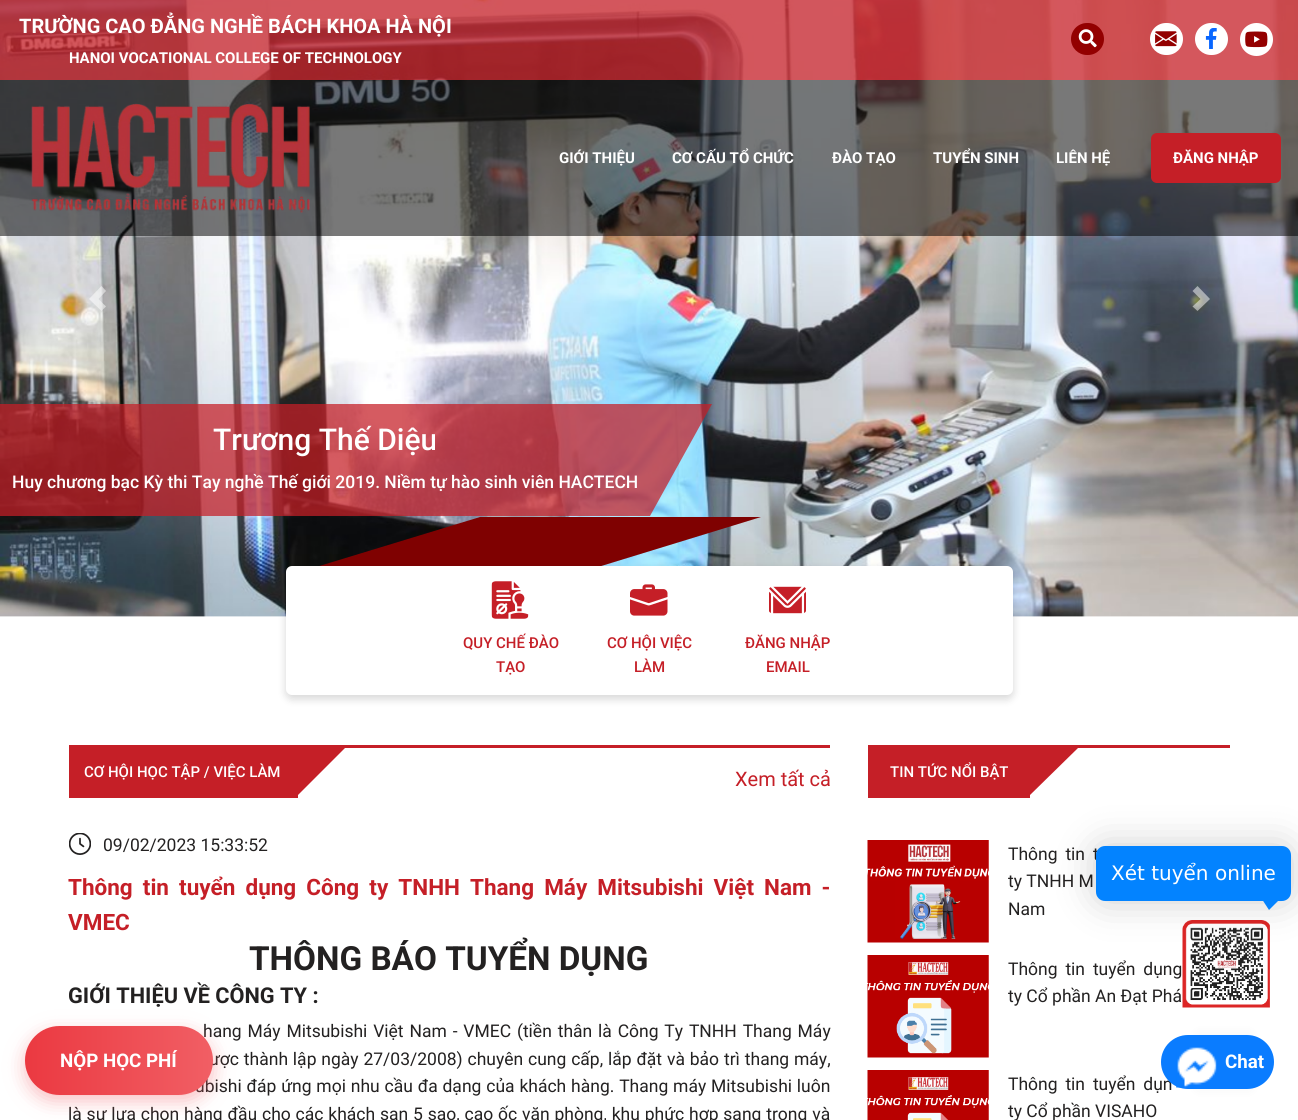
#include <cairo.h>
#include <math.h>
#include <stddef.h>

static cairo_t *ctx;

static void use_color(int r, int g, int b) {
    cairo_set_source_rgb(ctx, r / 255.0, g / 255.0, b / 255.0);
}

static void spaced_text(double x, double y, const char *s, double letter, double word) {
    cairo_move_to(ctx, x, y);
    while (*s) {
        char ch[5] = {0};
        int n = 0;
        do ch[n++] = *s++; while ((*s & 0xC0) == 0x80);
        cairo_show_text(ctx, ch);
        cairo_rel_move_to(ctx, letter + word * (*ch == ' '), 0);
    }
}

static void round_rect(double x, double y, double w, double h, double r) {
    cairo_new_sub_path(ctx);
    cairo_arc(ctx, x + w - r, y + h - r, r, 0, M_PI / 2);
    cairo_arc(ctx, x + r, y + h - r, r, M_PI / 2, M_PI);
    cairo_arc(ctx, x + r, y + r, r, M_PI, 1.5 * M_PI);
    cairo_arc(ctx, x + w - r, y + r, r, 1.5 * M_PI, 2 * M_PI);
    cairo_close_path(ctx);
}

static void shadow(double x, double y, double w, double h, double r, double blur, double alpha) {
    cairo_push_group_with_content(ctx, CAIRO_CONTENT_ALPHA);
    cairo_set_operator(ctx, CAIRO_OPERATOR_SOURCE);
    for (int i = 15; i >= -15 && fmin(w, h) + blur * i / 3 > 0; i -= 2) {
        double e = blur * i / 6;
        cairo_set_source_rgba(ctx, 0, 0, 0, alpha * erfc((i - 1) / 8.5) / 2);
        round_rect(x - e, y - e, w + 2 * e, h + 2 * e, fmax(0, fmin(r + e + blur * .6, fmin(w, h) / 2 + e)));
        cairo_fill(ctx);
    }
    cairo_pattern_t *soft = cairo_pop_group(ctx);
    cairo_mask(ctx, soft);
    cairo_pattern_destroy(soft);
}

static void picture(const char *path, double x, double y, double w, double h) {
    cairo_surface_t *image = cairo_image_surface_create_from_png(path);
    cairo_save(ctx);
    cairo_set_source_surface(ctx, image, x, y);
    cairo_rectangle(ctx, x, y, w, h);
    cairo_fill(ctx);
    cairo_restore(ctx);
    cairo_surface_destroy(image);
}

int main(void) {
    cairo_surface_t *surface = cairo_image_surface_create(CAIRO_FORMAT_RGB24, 1298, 1120);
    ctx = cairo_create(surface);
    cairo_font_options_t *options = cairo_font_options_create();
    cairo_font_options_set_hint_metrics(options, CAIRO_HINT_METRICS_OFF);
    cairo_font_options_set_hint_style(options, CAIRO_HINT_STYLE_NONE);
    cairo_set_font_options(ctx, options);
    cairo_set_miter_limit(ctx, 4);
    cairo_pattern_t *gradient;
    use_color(255, 255, 255);
    cairo_paint(ctx);
    picture("img6.png", 0, 0, 1298, 617);
    cairo_set_source_rgba(ctx, 0.773, 0.122, 0.153, 0.75);
    cairo_rectangle(ctx, 0, 0, 1298, 80);
    cairo_fill(ctx);
    cairo_select_font_face(ctx, "Roboto", CAIRO_FONT_SLANT_NORMAL, CAIRO_FONT_WEIGHT_BOLD);
    cairo_set_font_size(ctx, 20);
    use_color(255, 255, 255);
    cairo_move_to(ctx, 19, 33);
    cairo_show_text(ctx, "TRƯỜNG CAO ĐẲNG NGHỀ BÁCH KHOA HÀ NỘI");
    cairo_set_font_size(ctx, 15);
    cairo_move_to(ctx, 69, 63);
    cairo_show_text(ctx, "HANOI VOCATIONAL COLLEGE OF TECHNOLOGY");
    use_color(147, 0, 0);
    round_rect(1071, 23, 33, 32, 16);
    cairo_fill(ctx);
    picture("img1.png", 1078, 29, 19, 19);
    picture("img2.png", 1150, 23, 33, 32);
    picture("img3.png", 1195, 23, 33, 32);
    picture("img4.png", 1240, 23, 33, 33);
    cairo_set_source_rgba(ctx, 0, 0, 0, 0.53);
    cairo_rectangle(ctx, 0, 80, 1298, 156);
    cairo_fill(ctx);
    picture("img5.png", 31, 103, 279, 110);
    use_color(255, 255, 255);
    cairo_move_to(ctx, 559, 163);
    cairo_show_text(ctx, "GIỚI THIỆU");
    cairo_move_to(ctx, 672, 163);
    cairo_show_text(ctx, "CƠ CẤU TỔ CHỨC");
    cairo_move_to(ctx, 832, 163);
    cairo_show_text(ctx, "ĐÀO TẠO");
    cairo_move_to(ctx, 933, 163);
    cairo_show_text(ctx, "TUYỂN SINH");
    cairo_move_to(ctx, 1056, 163);
    cairo_show_text(ctx, "LIÊN HỆ");
    use_color(197, 31, 39);
    round_rect(1151, 133, 130, 50, 6);
    cairo_fill(ctx);
    use_color(255, 255, 255);
    cairo_move_to(ctx, 1173, 163);
    cairo_show_text(ctx, "ĐĂNG NHẬP");
    cairo_set_source_rgba(ctx, 1, 1, 1, 0.5);
    cairo_new_path(ctx);
    cairo_move_to(ctx, 101.5, 286);
    cairo_line_to(ctx, 89, 299);
    cairo_line_to(ctx, 101.5, 311);
    cairo_line_to(ctx, 106, 306.5);
    cairo_line_to(ctx, 98.5, 299);
    cairo_line_to(ctx, 106, 291);
    cairo_close_path(ctx);
    cairo_fill(ctx);
    cairo_new_path(ctx);
    cairo_move_to(ctx, 1197.5, 286);
    cairo_line_to(ctx, 1192.5, 291);
    cairo_line_to(ctx, 1200.5, 299);
    cairo_line_to(ctx, 1192.5, 306.5);
    cairo_line_to(ctx, 1197.5, 311);
    cairo_line_to(ctx, 1210, 299);
    cairo_close_path(ctx);
    cairo_fill(ctx);
    cairo_set_source_rgba(ctx, 0.773, 0.122, 0.153, 0.73);
    cairo_rectangle(ctx, 0, 404, 650, 112);
    cairo_fill(ctx);
    cairo_select_font_face(ctx, "Roboto Medium", CAIRO_FONT_SLANT_NORMAL, CAIRO_FONT_WEIGHT_NORMAL);
    cairo_set_font_size(ctx, 30);
    use_color(255, 255, 255);
    cairo_move_to(ctx, 213, 450);
    cairo_show_text(ctx, "Trương Thế Diệu");
    cairo_set_font_size(ctx, 17.5);
    cairo_move_to(ctx, 12, 488);
    cairo_show_text(ctx, "Huy chương bạc Kỳ thi Tay nghề Thế giới 2019. Niềm tự hào sinh viên HACTECH");
    cairo_set_source_rgba(ctx, 0.773, 0.122, 0.153, 0.73);
    cairo_new_path(ctx);
    cairo_move_to(ctx, 650, 404);
    cairo_line_to(ctx, 712, 404);
    cairo_line_to(ctx, 650, 516);
    cairo_close_path(ctx);
    cairo_fill(ctx);
    use_color(127, 1, 1);
    cairo_new_path(ctx);
    cairo_move_to(ctx, 480, 517);
    cairo_line_to(ctx, 761, 517);
    cairo_line_to(ctx, 598, 567);
    cairo_line_to(ctx, 316, 567);
    cairo_close_path(ctx);
    cairo_fill(ctx);
    use_color(0, 0, 0);
    shadow(286, 570, 727, 129, 6, 4.5, 0.16);
    use_color(255, 255, 255);
    round_rect(286, 566, 727, 129, 6);
    cairo_fill(ctx);
    picture("img7.png", 491, 581, 38, 38);
    cairo_set_font_size(ctx, 15);
    use_color(197, 31, 39);
    cairo_move_to(ctx, 463, 648);
    cairo_show_text(ctx, "QUY CHẾ ĐÀO");
    cairo_move_to(ctx, 496, 672);
    cairo_show_text(ctx, "TẠO");
    picture("img8.png", 630, 584, 38, 32);
    cairo_move_to(ctx, 607, 648);
    cairo_show_text(ctx, "CƠ HỘI VIỆC");
    cairo_move_to(ctx, 634, 672);
    cairo_show_text(ctx, "LÀM");
    picture("img9.png", 769, 586, 37, 28);
    cairo_move_to(ctx, 745, 648);
    cairo_show_text(ctx, "ĐĂNG NHẬP");
    cairo_move_to(ctx, 766, 672);
    cairo_show_text(ctx, "EMAIL");
    cairo_rectangle(ctx, 69, 745, 761, 3);
    cairo_fill(ctx);
    cairo_rectangle(ctx, 69, 748, 229, 50);
    cairo_fill(ctx);
    use_color(255, 255, 255);
    cairo_move_to(ctx, 84, 777);
    cairo_show_text(ctx, "CƠ HỘI HỌC TẬP / VIỆC LÀM");
    use_color(197, 31, 39);
    cairo_new_path(ctx);
    cairo_move_to(ctx, 298, 748);
    cairo_line_to(ctx, 345, 748);
    cairo_line_to(ctx, 298, 795);
    cairo_close_path(ctx);
    cairo_fill(ctx);
    cairo_select_font_face(ctx, "Roboto", CAIRO_FONT_SLANT_NORMAL, CAIRO_FONT_WEIGHT_NORMAL);
    cairo_set_font_size(ctx, 20);
    cairo_move_to(ctx, 735, 786);
    cairo_show_text(ctx, "Xem tất cả");
    picture("img10.png", 69, 833, 22, 22);
    cairo_set_font_size(ctx, 17.5);
    use_color(35, 33, 33);
    cairo_move_to(ctx, 103, 851);
    cairo_show_text(ctx, "09/02/2023 15:33:52");
    cairo_select_font_face(ctx, "Roboto", CAIRO_FONT_SLANT_NORMAL, CAIRO_FONT_WEIGHT_BOLD);
    cairo_set_font_size(ctx, 22.5);
    use_color(197, 31, 39);
    spaced_text(68, 895, "Thông tin tuyển dụng Công ty TNHH Thang Máy Mitsubishi Việt Nam -", 0, 4.5);
    cairo_move_to(ctx, 68, 930);
    cairo_show_text(ctx, "VMEC");
    cairo_set_font_size(ctx, 33.25);
    use_color(35, 33, 33);
    cairo_move_to(ctx, 249, 970);
    cairo_show_text(ctx, "THÔNG BÁO TUYỂN DỤNG");
    cairo_set_font_size(ctx, 21.75);
    cairo_move_to(ctx, 68, 1003);
    cairo_show_text(ctx, "GIỚI THIỆU VỀ CÔNG TY :");
    cairo_select_font_face(ctx, "Roboto", CAIRO_FONT_SLANT_NORMAL, CAIRO_FONT_WEIGHT_NORMAL);
    cairo_set_font_size(ctx, 17.5);
    spaced_text(203, 1037, "hang Máy Mitsubishi Việt Nam - VMEC (tiền thân là Công Ty TNHH Thang Máy", 0, 1.5);
    spaced_text(209, 1065, "ược thành lập ngày 27/03/2008) chuyên cung cấp, lắp đặt và bảo trì thang máy,", 0, 0.5);
    spaced_text(195, 1092, "ubishi đáp ứng mọi nhu cầu đa dạng của khách hàng. Thang máy Mitsubishi luôn", 0, 0.5);
    spaced_text(68, 1120, "là sự lựa chọn hàng đầu cho các khách sạn 5 sao, cao ốc văn phòng, khu phức hợp sang trọng và", 0, 0.5);
    use_color(197, 31, 39);
    cairo_rectangle(ctx, 868, 745, 362, 3);
    cairo_fill(ctx);
    cairo_rectangle(ctx, 868, 748, 162, 50);
    cairo_fill(ctx);
    cairo_select_font_face(ctx, "Roboto Medium", CAIRO_FONT_SLANT_NORMAL, CAIRO_FONT_WEIGHT_NORMAL);
    cairo_set_font_size(ctx, 15);
    use_color(255, 255, 255);
    cairo_move_to(ctx, 890, 777);
    cairo_show_text(ctx, "TIN TỨC NỔI BẬT");
    use_color(197, 31, 39);
    cairo_new_path(ctx);
    cairo_move_to(ctx, 1030, 748);
    cairo_line_to(ctx, 1078, 748);
    cairo_line_to(ctx, 1030, 795);
    cairo_close_path(ctx);
    cairo_fill(ctx);
    picture("img11.png", 867, 840, 122, 103);
    cairo_select_font_face(ctx, "Roboto", CAIRO_FONT_SLANT_NORMAL, CAIRO_FONT_WEIGHT_NORMAL);
    cairo_set_font_size(ctx, 17.5);
    use_color(35, 33, 33);
    spaced_text(1008, 860, "Thông tin t", 0, 3.5);
    cairo_move_to(ctx, 1008, 887);
    cairo_show_text(ctx, "ty TNHH M");
    cairo_move_to(ctx, 1008, 915);
    cairo_show_text(ctx, "Nam");
    picture("img12.png", 867, 955, 122, 103);
    spaced_text(1008, 975, "Thông tin tuyển dụng", 0, 3.5);
    cairo_move_to(ctx, 1008, 1002);
    cairo_show_text(ctx, "ty Cổ phần An Đạt Phá");
    picture("img13.png", 867, 1070, 122, 50);
    spaced_text(1008, 1090, "Thông tin tuyển dụn", 0, 3.5);
    cairo_move_to(ctx, 1008, 1117);
    cairo_show_text(ctx, "ty Cổ phần VISAHO");
    use_color(0, 0, 0);
    shadow(1198, 1035, 52, 53, 0, 6, 0.05);
    picture("img14.png", 1182, 920, 88, 88);
    shadow(1096, 846, 195, 55, 9, 19, 0.2);
    use_color(3, 131, 255);
    round_rect(1096, 846, 195, 55, 9);
    cairo_fill(ctx);
    cairo_select_font_face(ctx, "DejaVu Sans", CAIRO_FONT_SLANT_NORMAL, CAIRO_FONT_WEIGHT_NORMAL);
    cairo_set_font_size(ctx, 20);
    use_color(255, 255, 255);
    cairo_move_to(ctx, 1111, 880);
    cairo_show_text(ctx, "Xét tuyển online");
    use_color(3, 131, 255);
    cairo_new_path(ctx);
    cairo_move_to(ctx, 1262.5, 900);
    cairo_line_to(ctx, 1279, 900);
    cairo_line_to(ctx, 1269, 910);
    cairo_close_path(ctx);
    cairo_fill(ctx);
    use_color(242, 97, 103);
    shadow(25, 1033, 188, 68, 34, 9.5, 0.4);
    gradient = cairo_pattern_create_linear(25, 1061, 588, 1061);
    cairo_pattern_add_color_stop_rgba(gradient, 0, 0.922, 0.224, 0.255, 1);
    cairo_pattern_add_color_stop_rgba(gradient, 0.33, 0.945, 0.369, 0.392, 1);
    cairo_pattern_add_color_stop_rgba(gradient, 0.67, 0.882, 0.306, 0.325, 1);
    cairo_pattern_add_color_stop_rgba(gradient, 1, 0.886, 0.216, 0.247, 1);
    cairo_set_source(ctx, gradient);
    cairo_pattern_destroy(gradient);
    round_rect(25, 1026, 188, 69, 34.5);
    cairo_fill(ctx);
    cairo_select_font_face(ctx, "Roboto", CAIRO_FONT_SLANT_NORMAL, CAIRO_FONT_WEIGHT_BOLD);
    cairo_set_font_size(ctx, 18.75);
    use_color(255, 255, 255);
    cairo_move_to(ctx, 60, 1067);
    cairo_show_text(ctx, "NỘP HỌC PHÍ");
    use_color(10, 124, 255);
    round_rect(1161, 1035, 113, 54, 27);
    cairo_fill(ctx);
    picture("img15.png", 1176, 1047, 41, 41);
    use_color(255, 255, 255);
    cairo_move_to(ctx, 1225, 1068);
    cairo_show_text(ctx, "Chat");
    cairo_surface_write_to_png(surface, "result.png");
    cairo_font_options_destroy(options);
    cairo_destroy(ctx);
    cairo_surface_destroy(surface);
    return 0;
}
